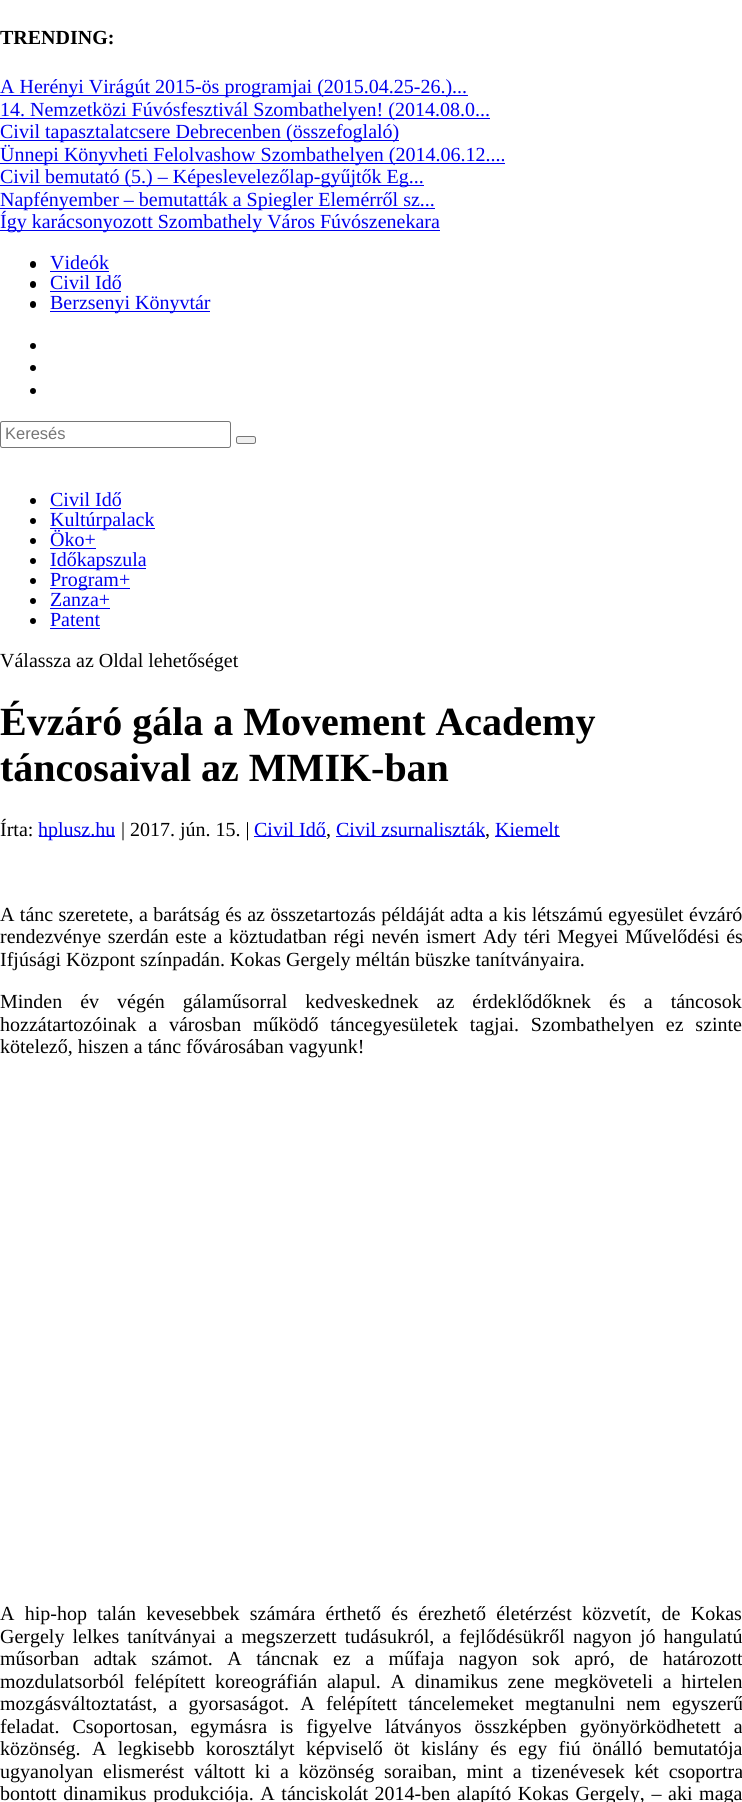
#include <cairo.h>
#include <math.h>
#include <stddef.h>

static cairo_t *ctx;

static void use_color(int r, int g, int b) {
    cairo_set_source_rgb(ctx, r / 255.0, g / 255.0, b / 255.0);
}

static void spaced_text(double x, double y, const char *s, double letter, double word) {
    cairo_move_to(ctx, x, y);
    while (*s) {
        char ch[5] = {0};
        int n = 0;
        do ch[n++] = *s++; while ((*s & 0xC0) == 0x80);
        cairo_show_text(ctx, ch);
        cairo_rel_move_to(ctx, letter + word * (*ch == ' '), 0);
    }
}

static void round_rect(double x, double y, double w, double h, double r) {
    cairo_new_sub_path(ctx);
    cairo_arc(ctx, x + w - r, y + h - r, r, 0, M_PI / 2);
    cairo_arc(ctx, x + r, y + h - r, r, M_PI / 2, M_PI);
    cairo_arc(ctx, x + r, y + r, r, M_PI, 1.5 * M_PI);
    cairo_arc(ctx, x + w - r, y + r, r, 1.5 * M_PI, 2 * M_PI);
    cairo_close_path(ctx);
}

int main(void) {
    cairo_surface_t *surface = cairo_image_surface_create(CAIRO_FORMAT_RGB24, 742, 1802);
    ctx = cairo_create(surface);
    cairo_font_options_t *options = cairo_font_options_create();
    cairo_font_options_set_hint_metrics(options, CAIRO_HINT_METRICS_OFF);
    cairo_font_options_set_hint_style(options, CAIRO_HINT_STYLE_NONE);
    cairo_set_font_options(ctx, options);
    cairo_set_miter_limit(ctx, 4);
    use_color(255, 255, 255);
    cairo_paint(ctx);
    cairo_select_font_face(ctx, "Liberation Serif", CAIRO_FONT_SLANT_NORMAL, CAIRO_FONT_WEIGHT_BOLD);
    cairo_set_font_size(ctx, 20);
    use_color(0, 0, 0);
    cairo_move_to(ctx, 0, 44);
    cairo_show_text(ctx, "TRENDING:");
    use_color(0, 0, 238);
    cairo_rectangle(ctx, 0, 95, 468, 1);
    cairo_fill(ctx);
    cairo_select_font_face(ctx, "Liberation Serif", CAIRO_FONT_SLANT_NORMAL, CAIRO_FONT_WEIGHT_NORMAL);
    cairo_move_to(ctx, 0, 93);
    cairo_show_text(ctx, "A Herényi Virágút 2015-ös programjai (2015.04.25-26.)...");
    cairo_rectangle(ctx, 0, 118, 490, 1);
    cairo_fill(ctx);
    cairo_move_to(ctx, 0, 116);
    cairo_show_text(ctx, "14. Nemzetközi Fúvósfesztivál Szombathelyen! (2014.08.0...");
    cairo_rectangle(ctx, 0, 140, 399, 1);
    cairo_fill(ctx);
    cairo_move_to(ctx, 0, 138);
    cairo_show_text(ctx, "Civil tapasztalatcsere Debrecenben (összefoglaló)");
    cairo_rectangle(ctx, 0, 163, 505, 1);
    cairo_fill(ctx);
    cairo_move_to(ctx, 0, 161);
    cairo_show_text(ctx, "Ünnepi Könyvheti Felolvashow Szombathelyen (2014.06.12....");
    cairo_rectangle(ctx, 0, 185, 424, 1);
    cairo_fill(ctx);
    cairo_move_to(ctx, 0, 183);
    cairo_show_text(ctx, "Civil bemutató (5.) – Képeslevelezőlap-gyűjtők Eg...");
    cairo_rectangle(ctx, 0, 208, 435, 1);
    cairo_fill(ctx);
    cairo_move_to(ctx, 0, 206);
    cairo_show_text(ctx, "Napfényember – bemutatták a Spiegler Elemérről sz...");
    cairo_rectangle(ctx, 0, 230, 440, 1);
    cairo_fill(ctx);
    cairo_move_to(ctx, 0, 228);
    cairo_show_text(ctx, "Így karácsonyozott Szombathely Város Fúvószenekara");
    use_color(0, 0, 0);
    round_rect(30, 261, 6, 7, 3);
    cairo_fill(ctx);
    use_color(0, 0, 238);
    cairo_move_to(ctx, 50, 269);
    cairo_show_text(ctx, "Videók");
    cairo_rectangle(ctx, 50, 271, 59, 1);
    cairo_fill(ctx);
    use_color(0, 0, 0);
    round_rect(30, 281, 6, 7, 3);
    cairo_fill(ctx);
    use_color(0, 0, 238);
    cairo_move_to(ctx, 50, 289);
    cairo_show_text(ctx, "Civil Idő");
    cairo_rectangle(ctx, 50, 291, 71, 1);
    cairo_fill(ctx);
    use_color(0, 0, 0);
    round_rect(30, 301, 6, 7, 3);
    cairo_fill(ctx);
    use_color(0, 0, 238);
    cairo_rectangle(ctx, 50, 311, 160, 1);
    cairo_fill(ctx);
    cairo_move_to(ctx, 50, 309);
    cairo_show_text(ctx, "Berzsenyi Könyvtár");
    use_color(0, 0, 0);
    cairo_new_path(ctx);
    cairo_arc(ctx, 33, 346, 3, 0, 2 * M_PI);
    cairo_fill(ctx);
    cairo_arc(ctx, 33, 368, 3, 0, 2 * M_PI);
    cairo_fill(ctx);
    cairo_arc(ctx, 33, 391, 3, 0, 2 * M_PI);
    cairo_fill(ctx);
    round_rect(0.5, 421.5, 230, 26, 2);
    use_color(118, 118, 118);
    cairo_set_line_width(ctx, 1);
    cairo_stroke(ctx);
    cairo_select_font_face(ctx, "Liberation Sans", CAIRO_FONT_SLANT_NORMAL, CAIRO_FONT_WEIGHT_NORMAL);
    cairo_set_font_size(ctx, 16.5);
    use_color(117, 117, 117);
    cairo_move_to(ctx, 5, 439);
    cairo_show_text(ctx, "Keresés");
    use_color(239, 239, 239);
    round_rect(236.5, 436.5, 19, 7, 2);
    cairo_fill_preserve(ctx);
    use_color(118, 118, 118);
    cairo_stroke(ctx);
    use_color(0, 0, 0);
    cairo_arc(ctx, 33, 501, 3, 0, 2 * M_PI);
    cairo_fill(ctx);
    cairo_select_font_face(ctx, "Liberation Serif", CAIRO_FONT_SLANT_NORMAL, CAIRO_FONT_WEIGHT_NORMAL);
    cairo_set_font_size(ctx, 20);
    use_color(0, 0, 238);
    cairo_move_to(ctx, 50, 506);
    cairo_show_text(ctx, "Civil Idő");
    cairo_rectangle(ctx, 50, 508, 71, 1);
    cairo_fill(ctx);
    use_color(0, 0, 0);
    cairo_arc(ctx, 33, 521, 3, 0, 2 * M_PI);
    cairo_fill(ctx);
    use_color(0, 0, 238);
    cairo_rectangle(ctx, 50, 528, 105, 1);
    cairo_fill(ctx);
    cairo_move_to(ctx, 50, 526);
    cairo_show_text(ctx, "Kultúrpalack");
    use_color(0, 0, 0);
    cairo_new_path(ctx);
    cairo_arc(ctx, 33, 541, 3, 0, 2 * M_PI);
    cairo_fill(ctx);
    use_color(0, 0, 238);
    cairo_move_to(ctx, 50, 546);
    cairo_show_text(ctx, "Öko+");
    cairo_rectangle(ctx, 50, 548, 46, 1);
    cairo_fill(ctx);
    use_color(0, 0, 0);
    cairo_arc(ctx, 33, 561, 3, 0, 2 * M_PI);
    cairo_fill(ctx);
    use_color(0, 0, 238);
    cairo_rectangle(ctx, 50, 568, 96, 1);
    cairo_fill(ctx);
    cairo_move_to(ctx, 50, 566);
    cairo_show_text(ctx, "Időkapszula");
    use_color(0, 0, 0);
    cairo_new_path(ctx);
    cairo_arc(ctx, 33, 581, 3, 0, 2 * M_PI);
    cairo_fill(ctx);
    use_color(0, 0, 238);
    cairo_rectangle(ctx, 50, 588, 80, 1);
    cairo_fill(ctx);
    cairo_move_to(ctx, 50, 586);
    cairo_show_text(ctx, "Program+");
    use_color(0, 0, 0);
    cairo_new_path(ctx);
    cairo_arc(ctx, 33, 601, 3, 0, 2 * M_PI);
    cairo_fill(ctx);
    use_color(0, 0, 238);
    cairo_move_to(ctx, 50, 606);
    cairo_show_text(ctx, "Zanza+");
    cairo_rectangle(ctx, 50, 608, 60, 1);
    cairo_fill(ctx);
    use_color(0, 0, 0);
    cairo_arc(ctx, 33, 621, 3, 0, 2 * M_PI);
    cairo_fill(ctx);
    use_color(0, 0, 238);
    cairo_move_to(ctx, 50, 626);
    cairo_show_text(ctx, "Patent");
    cairo_rectangle(ctx, 50, 628, 50, 1);
    cairo_fill(ctx);
    use_color(0, 0, 0);
    cairo_move_to(ctx, 0, 667);
    cairo_show_text(ctx, "Válassza az Oldal lehetőséget");
    cairo_select_font_face(ctx, "Liberation Serif", CAIRO_FONT_SLANT_NORMAL, CAIRO_FONT_WEIGHT_BOLD);
    cairo_set_font_size(ctx, 40);
    cairo_move_to(ctx, 0, 735);
    cairo_show_text(ctx, "Évzáró gála a Movement Academy");
    cairo_move_to(ctx, 0, 781);
    cairo_show_text(ctx, "táncosaival az MMIK-ban");
    cairo_select_font_face(ctx, "Liberation Serif", CAIRO_FONT_SLANT_NORMAL, CAIRO_FONT_WEIGHT_NORMAL);
    cairo_set_font_size(ctx, 20);
    cairo_move_to(ctx, 0, 836);
    cairo_show_text(ctx, "Írta:");
    use_color(0, 0, 238);
    cairo_rectangle(ctx, 39, 836, 76, 1);
    cairo_fill(ctx);
    cairo_move_to(ctx, 38, 836);
    cairo_show_text(ctx, "hplusz.hu");
    use_color(0, 0, 0);
    cairo_move_to(ctx, 121, 836);
    cairo_show_text(ctx, "| 2017. jún. 15. |");
    use_color(0, 0, 238);
    cairo_rectangle(ctx, 254, 836, 72, 1);
    cairo_fill(ctx);
    cairo_move_to(ctx, 254, 836);
    cairo_show_text(ctx, "Civil Idő");
    use_color(0, 0, 0);
    cairo_move_to(ctx, 326, 836);
    cairo_show_text(ctx, ",");
    use_color(0, 0, 238);
    cairo_rectangle(ctx, 336, 836, 149, 1);
    cairo_fill(ctx);
    cairo_move_to(ctx, 336, 836);
    cairo_show_text(ctx, "Civil zsurnaliszták");
    use_color(0, 0, 0);
    cairo_move_to(ctx, 485, 836);
    cairo_show_text(ctx, ",");
    use_color(0, 0, 238);
    cairo_rectangle(ctx, 495, 836, 65, 1);
    cairo_fill(ctx);
    cairo_move_to(ctx, 495, 836);
    cairo_show_text(ctx, "Kiemelt");
    use_color(0, 0, 0);
    spaced_text(0, 921, "A tánc szeretete, a barátság és az összetartozás példáját adta a kis létszámú egyesület évzáró", 0, 0.4);
    spaced_text(0, 943, "rendezvénye szerdán este a köztudatban régi nevén ismert Ady téri Megyei Művelődési és", 0, 1.75);
    cairo_move_to(ctx, 0, 966);
    cairo_show_text(ctx, "Ifjúsági Központ színpadán. Kokas Gergely méltán büszke tanítványaira.");
    spaced_text(0, 1008, "Minden év végén gálaműsorral kedveskednek az érdeklődőknek és a táncosok", 0, 13);
    spaced_text(0, 1031, "hozzátartozóinak a városban működő táncegyesületek tagjai. Szombathelyen ez szinte", 0, 6.75);
    cairo_move_to(ctx, 0, 1053);
    cairo_show_text(ctx, "kötelező, hiszen a tánc fővárosában vagyunk!");
    spaced_text(0, 1620, "A hip-hop talán kevesebbek számára érthető és érezhető életérzést közvetít, de Kokas", 0, 5.25);
    spaced_text(0, 1643, "Gergely lelkes tanítványai a megszerzett tudásukról, a fejlődésükről nagyon jó hangulatú", 0, 3.1);
    spaced_text(0, 1665, "műsorban adtak számot. A táncnak ez a műfaja nagyon sok apró, de határozott", 0, 9.5);
    spaced_text(0, 1688, "mozdulatsorból felépített koreográfián alapul. A dinamikus zene megköveteli a hirtelen", 0, 4.75);
    spaced_text(0, 1710, "mozgásváltoztatást, a gyorsaságot. A felépített táncelemeket megtanulni nem egyszerű", 0, 6.25);
    spaced_text(0, 1733, "feladat. Csoportosan, egymásra is figyelve látványos összképben gyönyörködhetett a", 0, 8);
    spaced_text(0, 1755, "közönség. A legkisebb korosztályt képviselő öt kislány és egy fiú önálló bemutatója", 0, 6.4);
    spaced_text(0, 1778, "ugyanolyan elismerést váltott ki a közönség soraiban, mint a tizenévesek két csoportra", 0, 4.75);
    spaced_text(0, 1800, "bontott dinamikus produkciója. A tánciskolát 2014-ben alapító Kokas Gergely, – aki maga", 0, 1.6);
    cairo_surface_write_to_png(surface, "result.png");
    cairo_font_options_destroy(options);
    cairo_destroy(ctx);
    cairo_surface_destroy(surface);
    return 0;
}
